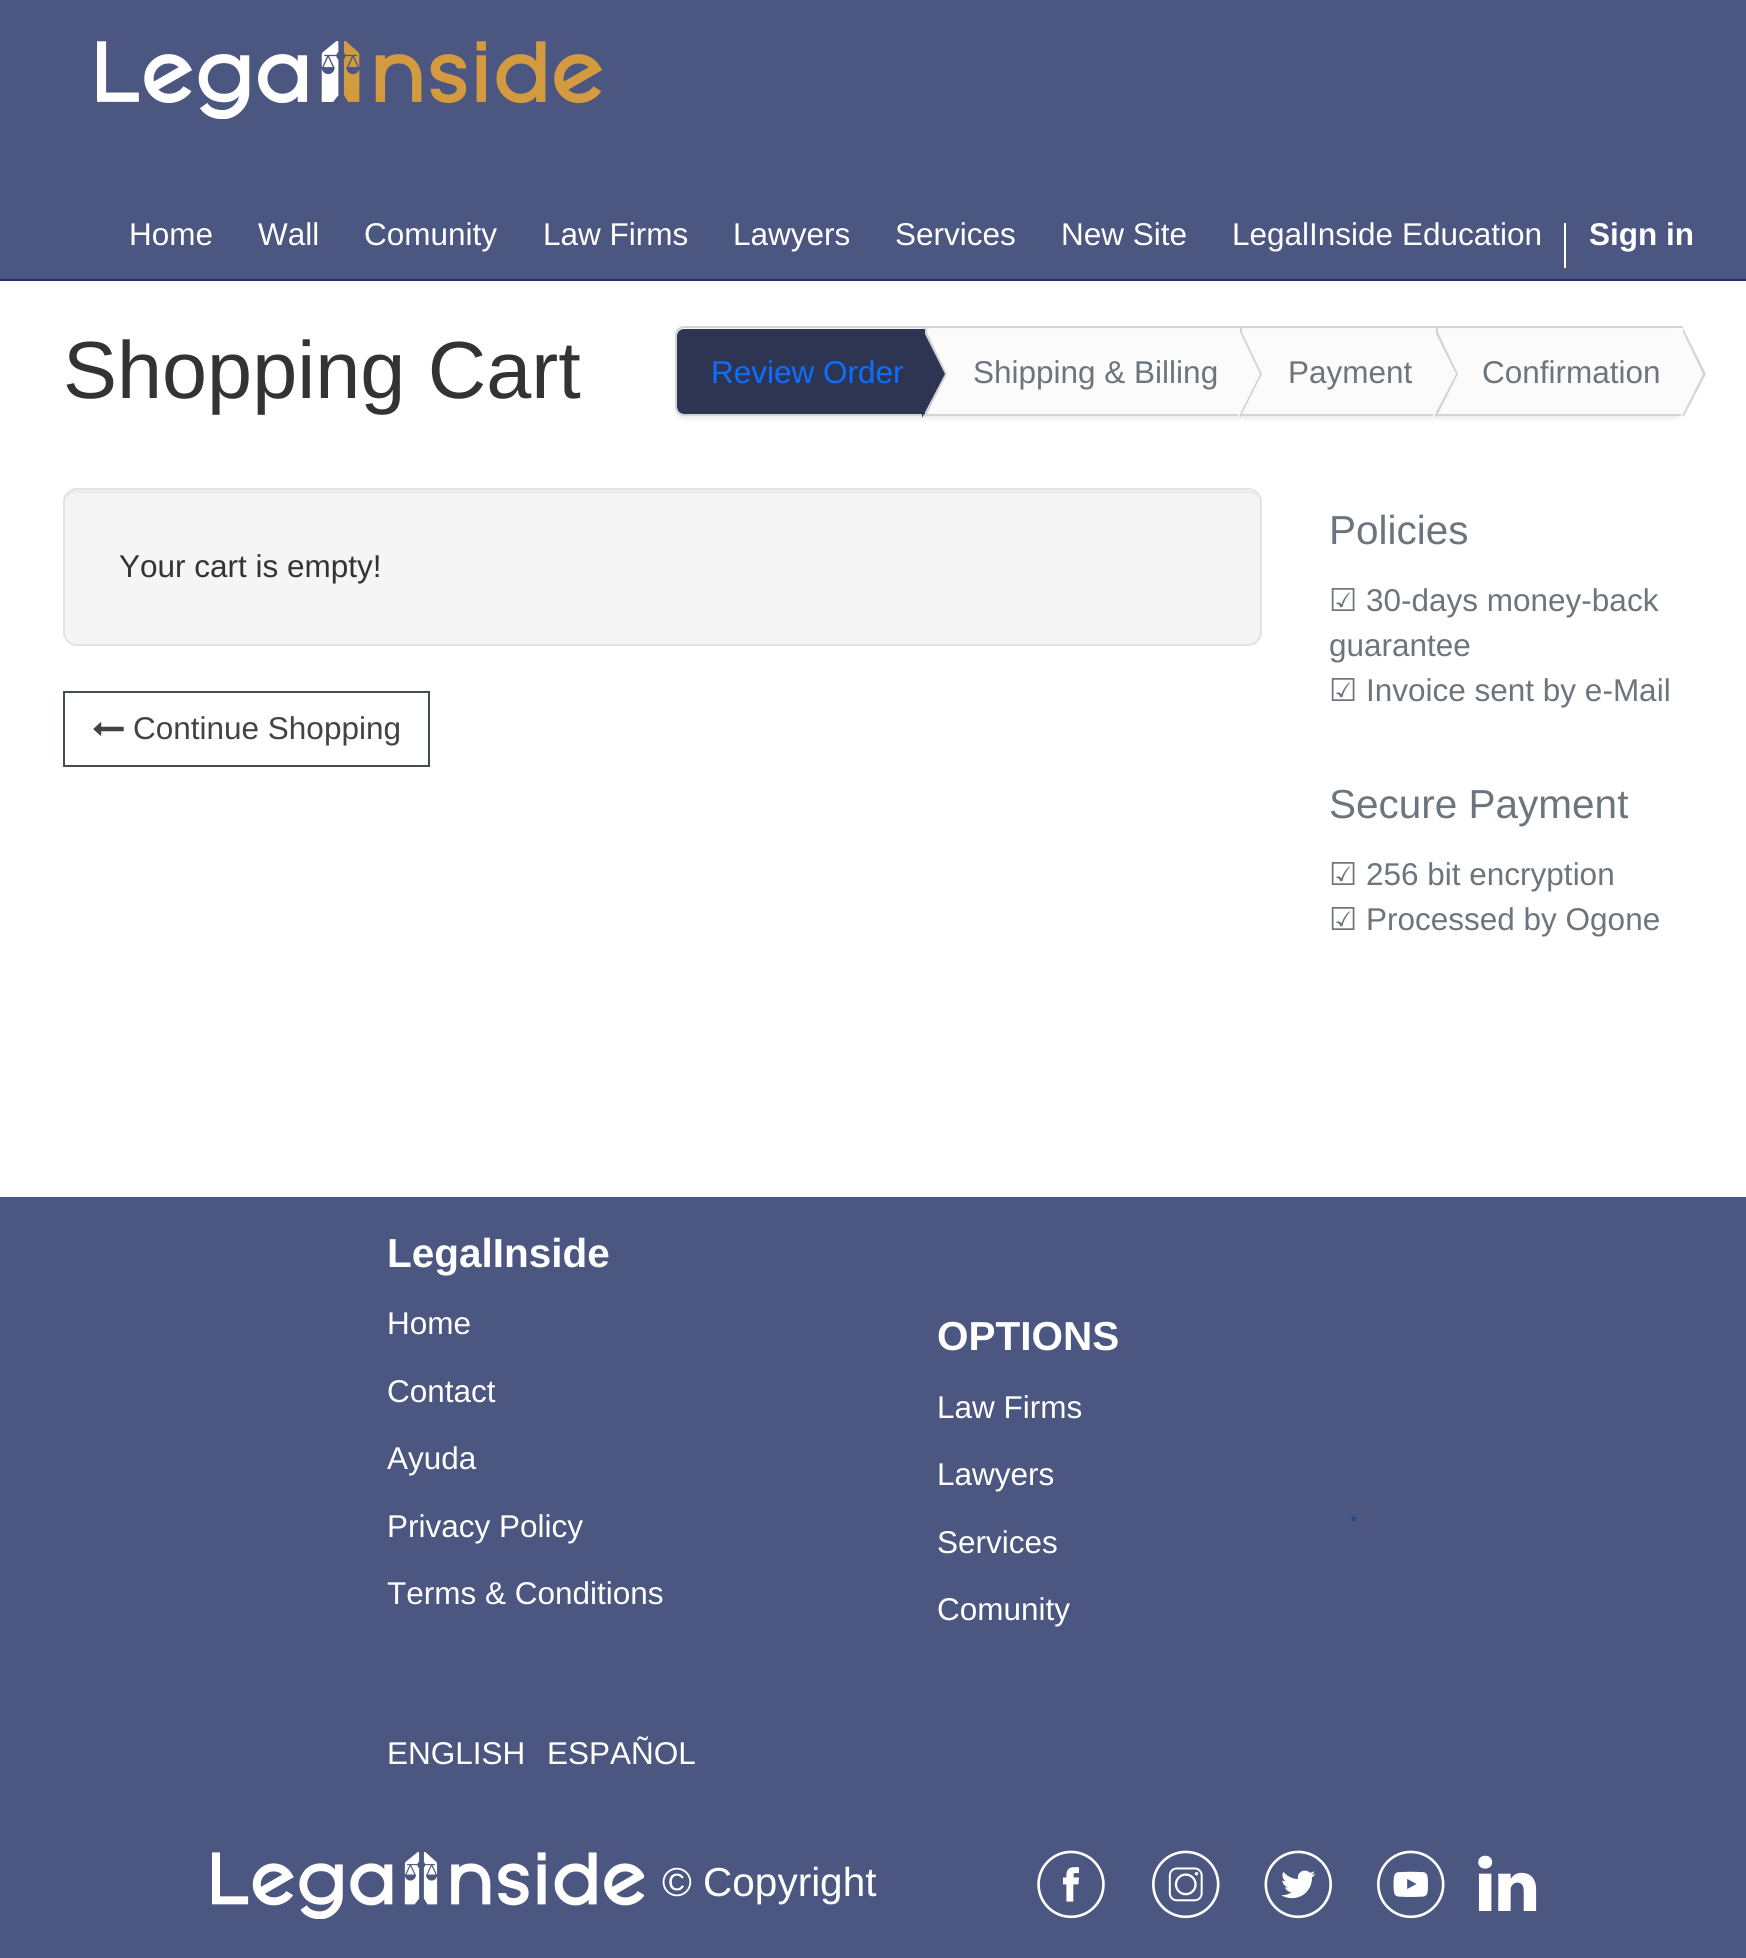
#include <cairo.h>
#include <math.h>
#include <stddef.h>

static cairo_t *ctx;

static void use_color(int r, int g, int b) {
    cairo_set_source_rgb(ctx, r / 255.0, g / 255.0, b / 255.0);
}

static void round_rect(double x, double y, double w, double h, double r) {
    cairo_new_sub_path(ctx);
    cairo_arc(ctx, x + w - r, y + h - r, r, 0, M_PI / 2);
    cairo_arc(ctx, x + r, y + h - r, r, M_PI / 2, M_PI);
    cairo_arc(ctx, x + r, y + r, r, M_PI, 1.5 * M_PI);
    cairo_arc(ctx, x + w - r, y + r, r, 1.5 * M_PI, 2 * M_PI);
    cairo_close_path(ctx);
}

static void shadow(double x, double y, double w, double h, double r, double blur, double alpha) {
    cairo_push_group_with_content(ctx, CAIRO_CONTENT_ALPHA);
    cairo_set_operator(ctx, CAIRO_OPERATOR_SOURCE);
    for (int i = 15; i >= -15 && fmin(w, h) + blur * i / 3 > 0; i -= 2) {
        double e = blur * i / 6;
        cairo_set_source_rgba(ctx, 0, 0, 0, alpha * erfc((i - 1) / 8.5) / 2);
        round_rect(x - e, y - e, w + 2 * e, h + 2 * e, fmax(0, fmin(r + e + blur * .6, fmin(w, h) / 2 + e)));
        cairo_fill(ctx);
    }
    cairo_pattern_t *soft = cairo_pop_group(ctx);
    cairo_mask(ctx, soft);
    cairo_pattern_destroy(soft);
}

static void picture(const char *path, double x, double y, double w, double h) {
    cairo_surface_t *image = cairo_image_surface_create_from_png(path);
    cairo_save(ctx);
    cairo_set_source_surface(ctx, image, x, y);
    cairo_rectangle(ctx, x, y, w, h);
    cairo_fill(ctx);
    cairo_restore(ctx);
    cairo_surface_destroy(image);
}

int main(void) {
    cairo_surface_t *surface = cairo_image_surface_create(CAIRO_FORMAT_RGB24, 1746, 1958);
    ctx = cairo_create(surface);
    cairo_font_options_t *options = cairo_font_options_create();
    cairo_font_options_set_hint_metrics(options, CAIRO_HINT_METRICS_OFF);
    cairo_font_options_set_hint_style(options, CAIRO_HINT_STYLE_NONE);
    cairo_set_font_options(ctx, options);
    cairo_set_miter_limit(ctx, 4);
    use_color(255, 255, 255);
    cairo_paint(ctx);
    use_color(75, 86, 129);
    cairo_rectangle(ctx, 0, 0, 1746, 279);
    cairo_fill(ctx);
    use_color(36, 49, 102);
    cairo_rectangle(ctx, 0, 279, 1746, 2);
    cairo_fill(ctx);
    picture("img1.png", 97, 41, 505, 78);
    cairo_select_font_face(ctx, "Liberation Sans", CAIRO_FONT_SLANT_NORMAL, CAIRO_FONT_WEIGHT_NORMAL);
    cairo_set_font_size(ctx, 31.5);
    use_color(255, 255, 255);
    cairo_move_to(ctx, 129, 245);
    cairo_show_text(ctx, "Home");
    cairo_move_to(ctx, 258, 245);
    cairo_show_text(ctx, "Wall");
    cairo_move_to(ctx, 364, 245);
    cairo_show_text(ctx, "Comunity");
    cairo_move_to(ctx, 543, 245);
    cairo_show_text(ctx, "Law Firms");
    cairo_move_to(ctx, 733, 245);
    cairo_show_text(ctx, "Lawyers");
    cairo_move_to(ctx, 895, 245);
    cairo_show_text(ctx, "Services");
    cairo_move_to(ctx, 1061, 245);
    cairo_show_text(ctx, "New Site");
    cairo_move_to(ctx, 1232, 245);
    cairo_show_text(ctx, "LegalInside Education");
    cairo_rectangle(ctx, 1564, 223, 2, 45);
    cairo_fill(ctx);
    cairo_select_font_face(ctx, "Liberation Sans", CAIRO_FONT_SLANT_NORMAL, CAIRO_FONT_WEIGHT_BOLD);
    cairo_move_to(ctx, 1589, 245);
    cairo_show_text(ctx, "Sign in");
    cairo_select_font_face(ctx, "Liberation Sans", CAIRO_FONT_SLANT_NORMAL, CAIRO_FONT_WEIGHT_NORMAL);
    cairo_set_font_size(ctx, 81);
    use_color(51, 51, 51);
    cairo_move_to(ctx, 63, 398);
    cairo_show_text(ctx, "Shopping Cart");
    use_color(0, 0, 0);
    shadow(675, 329, 1008, 90, 9, 2, 0.07);
    use_color(46, 53, 82);
    cairo_new_path(ctx);
    cairo_move_to(ctx, 684, 329);
    cairo_line_to(ctx, 925, 329);
    cairo_line_to(ctx, 925, 414);
    cairo_line_to(ctx, 684, 414);
    cairo_curve_to(ctx, 680, 414, 677, 411, 677, 407);
    cairo_line_to(ctx, 677, 336);
    cairo_curve_to(ctx, 677, 332, 680, 329, 684, 329);
    cairo_close_path(ctx);
    cairo_fill(ctx);
    use_color(212, 212, 212);
    cairo_set_fill_rule(ctx, CAIRO_FILL_RULE_EVEN_ODD);
    cairo_new_path(ctx);
    cairo_move_to(ctx, 684, 326);
    cairo_line_to(ctx, 925, 326);
    cairo_line_to(ctx, 925, 416);
    cairo_line_to(ctx, 684, 416);
    cairo_curve_to(ctx, 679, 416, 675, 412, 675, 407);
    cairo_line_to(ctx, 675, 335);
    cairo_curve_to(ctx, 675, 330, 679, 326, 684, 326);
    cairo_close_path(ctx);
    cairo_move_to(ctx, 684, 328);
    cairo_line_to(ctx, 925, 328);
    cairo_line_to(ctx, 925, 414);
    cairo_line_to(ctx, 684, 414);
    cairo_curve_to(ctx, 680, 414, 677, 411, 677, 407);
    cairo_line_to(ctx, 677, 335);
    cairo_curve_to(ctx, 677, 332, 680, 328, 684, 328);
    cairo_close_path(ctx);
    cairo_fill(ctx);
    cairo_set_font_size(ctx, 31.5);
    use_color(13, 110, 253);
    cairo_move_to(ctx, 711, 383);
    cairo_show_text(ctx, "Review Order");
    use_color(251, 251, 251);
    cairo_rectangle(ctx, 927, 329, 313, 85);
    cairo_fill(ctx);
    use_color(212, 212, 212);
    cairo_rectangle(ctx, 925, 414, 758, 2);
    cairo_fill(ctx);
    cairo_rectangle(ctx, 925, 326, 758, 2);
    cairo_fill(ctx);
    cairo_rectangle(ctx, 925, 326, 2, 90);
    cairo_fill(ctx);
    cairo_set_fill_rule(ctx, CAIRO_FILL_RULE_WINDING);
    cairo_new_path(ctx);
    cairo_move_to(ctx, 925, 418);
    cairo_line_to(ctx, 925, 328);
    cairo_line_to(ctx, 947, 374);
    cairo_close_path(ctx);
    cairo_fill(ctx);
    use_color(46, 53, 82);
    cairo_new_path(ctx);
    cairo_move_to(ctx, 922, 418);
    cairo_line_to(ctx, 922, 328);
    cairo_line_to(ctx, 945, 374);
    cairo_close_path(ctx);
    cairo_fill(ctx);
    use_color(108, 117, 125);
    cairo_move_to(ctx, 973, 383);
    cairo_show_text(ctx, "Shipping & Billing");
    use_color(251, 251, 251);
    cairo_rectangle(ctx, 1242, 329, 194, 85);
    cairo_fill(ctx);
    use_color(212, 212, 212);
    cairo_rectangle(ctx, 1240, 326, 2, 90);
    cairo_fill(ctx);
    cairo_new_path(ctx);
    cairo_move_to(ctx, 1240, 418);
    cairo_line_to(ctx, 1240, 328);
    cairo_line_to(ctx, 1262, 374);
    cairo_close_path(ctx);
    cairo_fill(ctx);
    use_color(251, 251, 251);
    cairo_new_path(ctx);
    cairo_move_to(ctx, 1238, 418);
    cairo_line_to(ctx, 1238, 328);
    cairo_line_to(ctx, 1260, 374);
    cairo_close_path(ctx);
    cairo_fill(ctx);
    use_color(108, 117, 125);
    cairo_move_to(ctx, 1288, 383);
    cairo_show_text(ctx, "Payment");
    use_color(251, 251, 251);
    cairo_rectangle(ctx, 1438, 329, 245, 85);
    cairo_fill(ctx);
    use_color(212, 212, 212);
    cairo_rectangle(ctx, 1436, 326, 2, 90);
    cairo_fill(ctx);
    cairo_new_path(ctx);
    cairo_move_to(ctx, 1436, 418);
    cairo_line_to(ctx, 1436, 328);
    cairo_line_to(ctx, 1458, 374);
    cairo_close_path(ctx);
    cairo_fill(ctx);
    use_color(251, 251, 251);
    cairo_new_path(ctx);
    cairo_move_to(ctx, 1433, 418);
    cairo_line_to(ctx, 1433, 328);
    cairo_line_to(ctx, 1456, 374);
    cairo_close_path(ctx);
    cairo_fill(ctx);
    use_color(108, 117, 125);
    cairo_move_to(ctx, 1482, 383);
    cairo_show_text(ctx, "Confirmation");
    use_color(212, 212, 212);
    cairo_new_path(ctx);
    cairo_move_to(ctx, 1683, 418);
    cairo_line_to(ctx, 1683, 328);
    cairo_line_to(ctx, 1706, 374);
    cairo_close_path(ctx);
    cairo_fill(ctx);
    use_color(251, 251, 251);
    cairo_new_path(ctx);
    cairo_move_to(ctx, 1681, 418);
    cairo_line_to(ctx, 1681, 328);
    cairo_line_to(ctx, 1703, 374);
    cairo_close_path(ctx);
    cairo_fill(ctx);
    use_color(245, 245, 245);
    round_rect(63, 488, 1199, 158, 14);
    cairo_fill(ctx);
    use_color(233, 233, 233);
    cairo_new_path(ctx);
    cairo_move_to(ctx, 76, 493);
    cairo_line_to(ctx, 1249, 493);
    cairo_curve_to(ctx, 1255, 493, 1260, 498, 1260, 504);
    cairo_curve_to(ctx, 1260, 497, 1256, 491, 1249, 491);
    cairo_line_to(ctx, 76, 491);
    cairo_curve_to(ctx, 69, 491, 65, 497, 65, 504);
    cairo_curve_to(ctx, 65, 498, 70, 493, 76, 493);
    cairo_close_path(ctx);
    cairo_fill(ctx);
    round_rect(64, 489, 1197, 156, 13);
    use_color(227, 227, 227);
    cairo_stroke(ctx);
    use_color(51, 51, 51);
    cairo_move_to(ctx, 119, 577);
    cairo_show_text(ctx, "Your cart is empty!");
    cairo_rectangle(ctx, 64, 692, 365, 74);
    use_color(66, 77, 88);
    cairo_stroke(ctx);
    picture("img2.png", 93, 722, 31, 14);
    use_color(68, 66, 66);
    cairo_move_to(ctx, 133, 739);
    cairo_show_text(ctx, "Continue Shopping");
    cairo_set_font_size(ctx, 40.5);
    use_color(108, 117, 125);
    cairo_move_to(ctx, 1329, 544);
    cairo_show_text(ctx, "Policies");
    cairo_select_font_face(ctx, "DejaVu Sans", CAIRO_FONT_SLANT_NORMAL, CAIRO_FONT_WEIGHT_NORMAL);
    cairo_set_font_size(ctx, 31.5);
    cairo_move_to(ctx, 1329, 611);
    cairo_show_text(ctx, "☑");
    cairo_select_font_face(ctx, "Liberation Sans", CAIRO_FONT_SLANT_NORMAL, CAIRO_FONT_WEIGHT_NORMAL);
    cairo_move_to(ctx, 1366, 611);
    cairo_show_text(ctx, "30-days money-back");
    cairo_move_to(ctx, 1329, 656);
    cairo_show_text(ctx, "guarantee");
    cairo_select_font_face(ctx, "DejaVu Sans", CAIRO_FONT_SLANT_NORMAL, CAIRO_FONT_WEIGHT_NORMAL);
    cairo_move_to(ctx, 1329, 701);
    cairo_show_text(ctx, "☑");
    cairo_select_font_face(ctx, "Liberation Sans", CAIRO_FONT_SLANT_NORMAL, CAIRO_FONT_WEIGHT_NORMAL);
    cairo_move_to(ctx, 1366, 701);
    cairo_show_text(ctx, "Invoice sent by e-Mail");
    cairo_set_font_size(ctx, 40.5);
    cairo_move_to(ctx, 1329, 818);
    cairo_show_text(ctx, "Secure Payment");
    cairo_select_font_face(ctx, "DejaVu Sans", CAIRO_FONT_SLANT_NORMAL, CAIRO_FONT_WEIGHT_NORMAL);
    cairo_set_font_size(ctx, 31.5);
    cairo_move_to(ctx, 1329, 885);
    cairo_show_text(ctx, "☑");
    cairo_select_font_face(ctx, "Liberation Sans", CAIRO_FONT_SLANT_NORMAL, CAIRO_FONT_WEIGHT_NORMAL);
    cairo_move_to(ctx, 1366, 885);
    cairo_show_text(ctx, "256 bit encryption");
    cairo_select_font_face(ctx, "DejaVu Sans", CAIRO_FONT_SLANT_NORMAL, CAIRO_FONT_WEIGHT_NORMAL);
    cairo_move_to(ctx, 1329, 930);
    cairo_show_text(ctx, "☑");
    cairo_select_font_face(ctx, "Liberation Sans", CAIRO_FONT_SLANT_NORMAL, CAIRO_FONT_WEIGHT_NORMAL);
    cairo_move_to(ctx, 1366, 930);
    cairo_show_text(ctx, "Processed by Ogone");
    use_color(75, 86, 129);
    cairo_rectangle(ctx, 0, 1197, 1746, 761);
    cairo_fill(ctx);
    cairo_select_font_face(ctx, "Liberation Sans", CAIRO_FONT_SLANT_NORMAL, CAIRO_FONT_WEIGHT_BOLD);
    cairo_set_font_size(ctx, 40.5);
    use_color(255, 255, 255);
    cairo_move_to(ctx, 387, 1267);
    cairo_show_text(ctx, "LegalInside");
    cairo_select_font_face(ctx, "Liberation Sans", CAIRO_FONT_SLANT_NORMAL, CAIRO_FONT_WEIGHT_NORMAL);
    cairo_set_font_size(ctx, 31.5);
    cairo_move_to(ctx, 387, 1334);
    cairo_show_text(ctx, "Home");
    cairo_move_to(ctx, 387, 1402);
    cairo_show_text(ctx, "Contact");
    cairo_move_to(ctx, 387, 1469);
    cairo_show_text(ctx, "Ayuda");
    cairo_move_to(ctx, 387, 1537);
    cairo_show_text(ctx, "Privacy Policy");
    cairo_move_to(ctx, 387, 1604);
    cairo_show_text(ctx, "Terms & Conditions");
    cairo_move_to(ctx, 387, 1764);
    cairo_show_text(ctx, "ENGLISH");
    cairo_move_to(ctx, 547, 1764);
    cairo_show_text(ctx, "ESPAÑOL");
    cairo_select_font_face(ctx, "Liberation Sans", CAIRO_FONT_SLANT_NORMAL, CAIRO_FONT_WEIGHT_BOLD);
    cairo_set_font_size(ctx, 40.5);
    cairo_move_to(ctx, 937, 1350);
    cairo_show_text(ctx, "OPTIONS");
    cairo_select_font_face(ctx, "Liberation Sans", CAIRO_FONT_SLANT_NORMAL, CAIRO_FONT_WEIGHT_NORMAL);
    cairo_set_font_size(ctx, 31.5);
    cairo_move_to(ctx, 937, 1418);
    cairo_show_text(ctx, "Law Firms");
    cairo_move_to(ctx, 937, 1485);
    cairo_show_text(ctx, "Lawyers");
    cairo_move_to(ctx, 937, 1553);
    cairo_show_text(ctx, "Services");
    cairo_move_to(ctx, 937, 1620);
    cairo_show_text(ctx, "Comunity");
    cairo_set_font_size(ctx, 40.5);
    use_color(8, 82, 148);
    cairo_move_to(ctx, 1348, 1521);
    cairo_show_text(ctx, ".");
    picture("img3.png", 212, 1852, 432, 67);
    use_color(255, 255, 255);
    cairo_move_to(ctx, 662, 1896);
    cairo_show_text(ctx, "© Copyright");
    picture("img4.png", 1037, 1850, 68, 69);
    picture("img5.png", 1152, 1850, 68, 69);
    picture("img6.png", 1264, 1850, 68, 69);
    picture("img7.png", 1377, 1850, 68, 69);
    picture("img8.png", 1478, 1855, 59, 56);
    cairo_surface_write_to_png(surface, "result.png");
    cairo_font_options_destroy(options);
    cairo_destroy(ctx);
    cairo_surface_destroy(surface);
    return 0;
}
